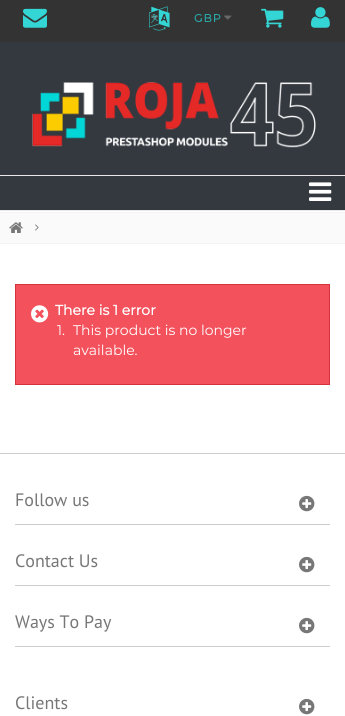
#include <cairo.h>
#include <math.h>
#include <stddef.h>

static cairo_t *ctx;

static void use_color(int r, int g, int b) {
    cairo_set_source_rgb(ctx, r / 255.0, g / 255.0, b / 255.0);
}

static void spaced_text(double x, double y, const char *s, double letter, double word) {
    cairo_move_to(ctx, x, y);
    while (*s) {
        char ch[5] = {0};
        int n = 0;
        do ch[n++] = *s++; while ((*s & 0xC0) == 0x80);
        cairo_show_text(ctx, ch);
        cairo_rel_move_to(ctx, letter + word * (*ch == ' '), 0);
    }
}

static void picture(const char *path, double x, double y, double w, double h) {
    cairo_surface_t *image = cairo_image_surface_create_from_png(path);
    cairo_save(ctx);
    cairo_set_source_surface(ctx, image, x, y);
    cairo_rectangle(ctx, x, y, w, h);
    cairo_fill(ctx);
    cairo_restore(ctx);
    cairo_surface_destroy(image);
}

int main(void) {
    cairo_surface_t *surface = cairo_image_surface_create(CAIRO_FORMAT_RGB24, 345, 716);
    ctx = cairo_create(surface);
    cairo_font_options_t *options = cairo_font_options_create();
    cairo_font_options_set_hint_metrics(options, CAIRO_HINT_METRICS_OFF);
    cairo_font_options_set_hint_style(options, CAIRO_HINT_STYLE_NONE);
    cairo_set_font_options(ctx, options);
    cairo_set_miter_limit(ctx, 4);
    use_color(255, 255, 255);
    cairo_paint(ctx);
    use_color(51, 51, 51);
    cairo_rectangle(ctx, 0, 0, 345, 42);
    cairo_fill(ctx);
    picture("img1.png", 23, 8, 24, 20);
    picture("img3.png", 151, 15, 8, 5);
    picture("img2.png", 149, 6, 21, 25);
    cairo_select_font_face(ctx, "Montserrat", CAIRO_FONT_SLANT_NORMAL, CAIRO_FONT_WEIGHT_BOLD);
    cairo_set_font_size(ctx, 11);
    use_color(41, 166, 165);
    spaced_text(194, 22, "GBP", 1, 0);
    picture("img3.png", 224, 15, 8, 5);
    picture("img4.png", 261, 8, 23, 20);
    picture("img5.png", 311, 7, 19, 21);
    use_color(52, 56, 63);
    cairo_rectangle(ctx, 0, 42, 345, 133);
    cairo_fill(ctx);
    picture("img6.png", 32, 82, 284, 66);
    cairo_rectangle(ctx, 0, 176, 345, 34);
    cairo_fill(ctx);
    use_color(233, 233, 233);
    cairo_rectangle(ctx, 0, 175, 345, 1);
    cairo_fill(ctx);
    cairo_rectangle(ctx, 0, 210, 345, 1);
    cairo_fill(ctx);
    picture("img7.png", 309, 182, 23, 19);
    use_color(250, 250, 250);
    cairo_rectangle(ctx, 0, 213, 345, 30);
    cairo_fill(ctx);
    use_color(243, 243, 243);
    cairo_rectangle(ctx, 0, 212, 345, 1);
    cairo_fill(ctx);
    cairo_rectangle(ctx, 0, 243, 345, 1);
    cairo_fill(ctx);
    picture("img8.png", 9, 222, 14, 11);
    picture("img9.png", 35, 224, 4, 7);
    use_color(243, 81, 92);
    cairo_rectangle(ctx, 15.5, 284.5, 314, 100);
    cairo_fill_preserve(ctx);
    use_color(212, 50, 61);
    cairo_set_line_width(ctx, 1);
    cairo_stroke(ctx);
    picture("img10.png", 31, 305, 18, 18);
    cairo_set_font_size(ctx, 14);
    use_color(255, 255, 255);
    cairo_move_to(ctx, 55, 315);
    cairo_show_text(ctx, "There is 1 error");
    cairo_select_font_face(ctx, "Montserrat Thin", CAIRO_FONT_SLANT_NORMAL, CAIRO_FONT_WEIGHT_NORMAL);
    cairo_move_to(ctx, 57, 335);
    cairo_show_text(ctx, "1.");
    cairo_move_to(ctx, 73, 335);
    cairo_show_text(ctx, "This product is no longer");
    cairo_move_to(ctx, 73, 355);
    cairo_show_text(ctx, "available.");
    use_color(204, 204, 204);
    cairo_rectangle(ctx, 0, 453, 345, 1);
    cairo_fill(ctx);
    cairo_rectangle(ctx, 15, 524, 315, 1);
    cairo_fill(ctx);
    cairo_select_font_face(ctx, "PT Sans", CAIRO_FONT_SLANT_NORMAL, CAIRO_FONT_WEIGHT_NORMAL);
    cairo_set_font_size(ctx, 18);
    use_color(119, 119, 119);
    cairo_move_to(ctx, 15, 506);
    cairo_show_text(ctx, "Follow us");
    picture("img11.png", 299, 495, 16, 17);
    use_color(204, 204, 204);
    cairo_rectangle(ctx, 15, 585, 315, 1);
    cairo_fill(ctx);
    use_color(119, 119, 119);
    cairo_move_to(ctx, 15, 567);
    cairo_show_text(ctx, "Contact Us");
    picture("img11.png", 299, 556, 16, 17);
    use_color(204, 204, 204);
    cairo_rectangle(ctx, 15, 646, 315, 1);
    cairo_fill(ctx);
    use_color(119, 119, 119);
    cairo_move_to(ctx, 15, 628);
    cairo_show_text(ctx, "Ways To Pay");
    picture("img11.png", 299, 617, 16, 17);
    cairo_move_to(ctx, 15, 709);
    cairo_show_text(ctx, "Clients");
    picture("img11.png", 299, 698, 16, 17);
    cairo_surface_write_to_png(surface, "result.png");
    cairo_font_options_destroy(options);
    cairo_destroy(ctx);
    cairo_surface_destroy(surface);
    return 0;
}
